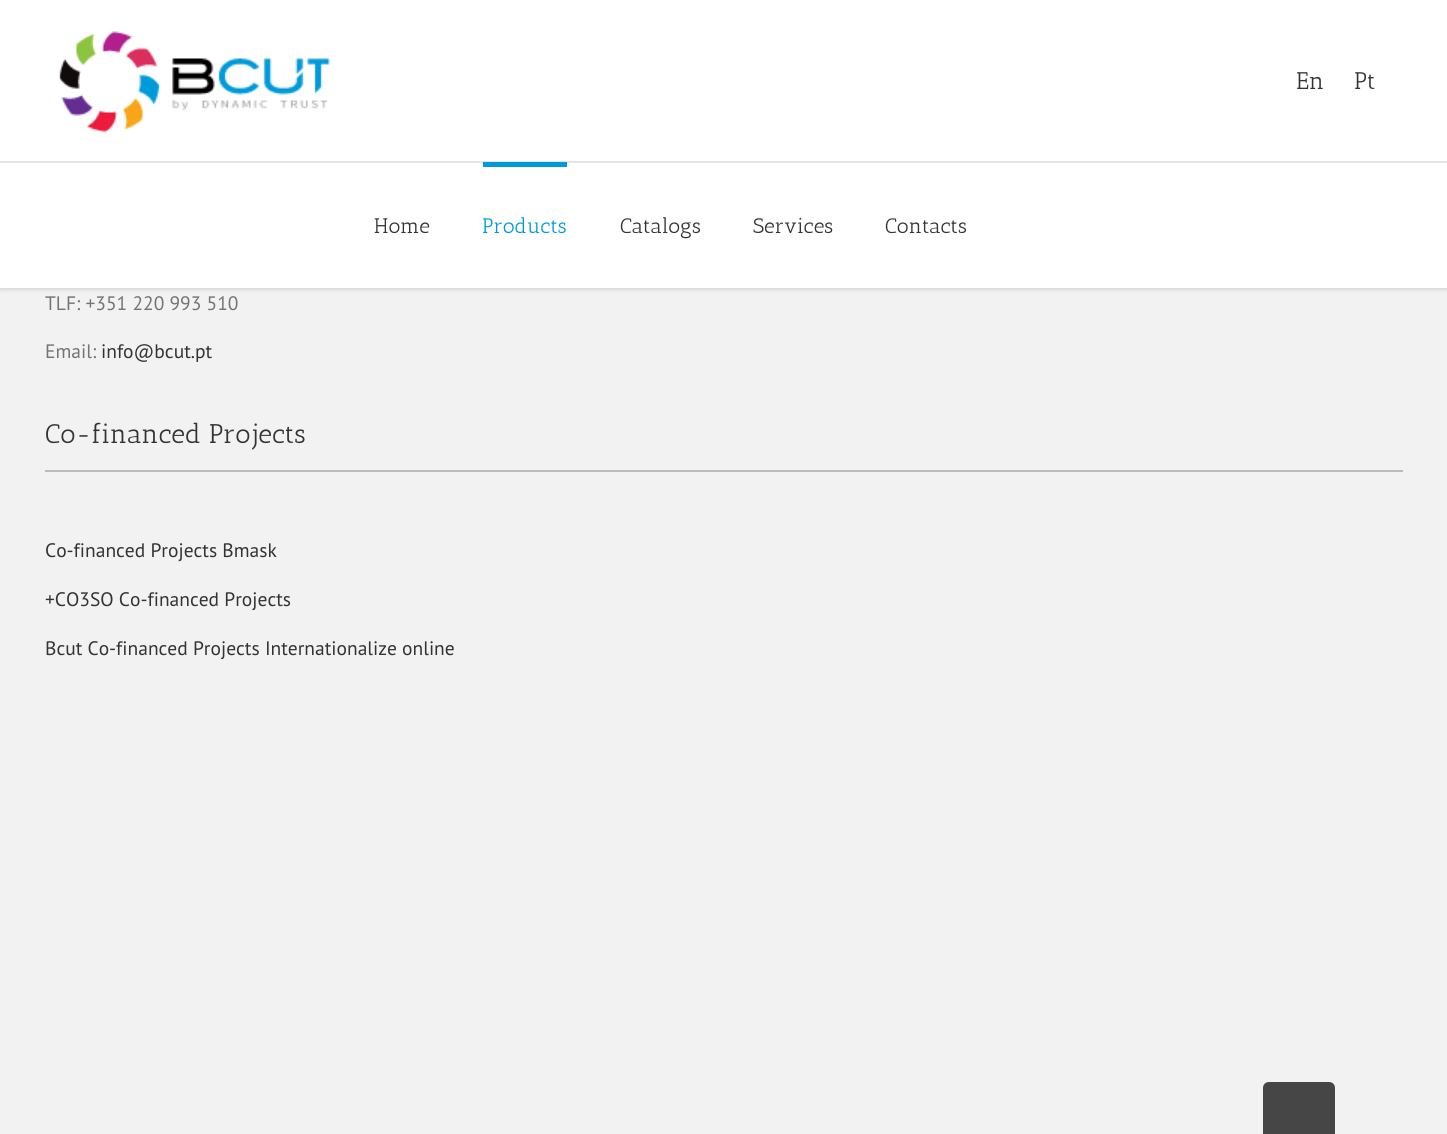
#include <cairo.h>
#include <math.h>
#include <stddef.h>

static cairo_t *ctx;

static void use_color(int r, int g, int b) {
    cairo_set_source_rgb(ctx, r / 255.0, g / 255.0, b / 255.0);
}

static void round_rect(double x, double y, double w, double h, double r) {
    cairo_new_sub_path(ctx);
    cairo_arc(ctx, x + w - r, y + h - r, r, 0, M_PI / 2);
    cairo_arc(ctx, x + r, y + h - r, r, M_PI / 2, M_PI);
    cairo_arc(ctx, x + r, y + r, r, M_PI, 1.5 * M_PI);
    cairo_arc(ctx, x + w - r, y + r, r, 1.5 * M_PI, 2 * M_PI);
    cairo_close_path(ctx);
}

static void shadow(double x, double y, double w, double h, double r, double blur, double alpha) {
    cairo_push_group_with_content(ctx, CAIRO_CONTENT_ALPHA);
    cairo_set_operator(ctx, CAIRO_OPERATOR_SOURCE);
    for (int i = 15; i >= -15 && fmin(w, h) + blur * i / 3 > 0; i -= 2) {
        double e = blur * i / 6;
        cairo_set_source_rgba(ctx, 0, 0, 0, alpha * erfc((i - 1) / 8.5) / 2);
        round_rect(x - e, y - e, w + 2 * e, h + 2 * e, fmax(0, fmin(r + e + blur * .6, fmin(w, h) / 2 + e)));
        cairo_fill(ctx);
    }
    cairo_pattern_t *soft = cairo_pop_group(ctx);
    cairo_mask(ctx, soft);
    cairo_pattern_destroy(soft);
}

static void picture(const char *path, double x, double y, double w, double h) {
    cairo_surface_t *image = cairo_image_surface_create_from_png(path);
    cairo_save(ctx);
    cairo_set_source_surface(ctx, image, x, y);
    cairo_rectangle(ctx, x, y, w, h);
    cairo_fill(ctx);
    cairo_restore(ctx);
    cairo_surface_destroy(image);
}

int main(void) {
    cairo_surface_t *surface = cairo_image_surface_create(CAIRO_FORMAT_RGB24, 1447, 1134);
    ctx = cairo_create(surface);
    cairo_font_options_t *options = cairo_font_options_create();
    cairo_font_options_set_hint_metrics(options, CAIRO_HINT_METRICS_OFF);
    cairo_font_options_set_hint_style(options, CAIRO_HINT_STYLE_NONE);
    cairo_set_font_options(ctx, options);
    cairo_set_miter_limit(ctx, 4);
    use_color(242, 242, 242);
    cairo_paint(ctx);
    use_color(0, 0, 0);
    shadow(0, 2, 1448, 288, 0, 2, 0.12);
    use_color(255, 255, 255);
    cairo_rectangle(ctx, 0, 0, 1447, 161);
    cairo_fill(ctx);
    use_color(229, 229, 229);
    cairo_rectangle(ctx, 0, 161, 1447, 2);
    cairo_fill(ctx);
    picture("img1.png", 59, 31, 272, 102);
    cairo_select_font_face(ctx, "Antic Slab", CAIRO_FONT_SLANT_NORMAL, CAIRO_FONT_WEIGHT_NORMAL);
    cairo_set_font_size(ctx, 24);
    use_color(51, 51, 51);
    cairo_move_to(ctx, 1296, 89);
    cairo_show_text(ctx, "En");
    cairo_move_to(ctx, 1354, 89);
    cairo_show_text(ctx, "Pt");
    use_color(255, 255, 255);
    cairo_rectangle(ctx, 0, 163, 1447, 125);
    cairo_fill(ctx);
    cairo_set_font_size(ctx, 21);
    use_color(51, 51, 51);
    cairo_move_to(ctx, 374, 233);
    cairo_show_text(ctx, "Home");
    use_color(0, 154, 218);
    cairo_rectangle(ctx, 483, 162, 84, 5);
    cairo_fill(ctx);
    cairo_move_to(ctx, 482, 233);
    cairo_show_text(ctx, "Products");
    use_color(51, 51, 51);
    cairo_move_to(ctx, 620, 233);
    cairo_show_text(ctx, "Catalogs");
    cairo_move_to(ctx, 753, 233);
    cairo_show_text(ctx, "Services");
    cairo_move_to(ctx, 885, 233);
    cairo_show_text(ctx, "Contacts");
    cairo_select_font_face(ctx, "PT Sans", CAIRO_FONT_SLANT_NORMAL, CAIRO_FONT_WEIGHT_NORMAL);
    cairo_set_font_size(ctx, 19.5);
    use_color(116, 116, 116);
    cairo_move_to(ctx, 45, 310);
    cairo_show_text(ctx, "TLF: +351 220 993 510");
    cairo_move_to(ctx, 45, 358);
    cairo_show_text(ctx, "Email:");
    use_color(51, 51, 51);
    cairo_move_to(ctx, 101, 358);
    cairo_show_text(ctx, "info@bcut.pt");
    use_color(188, 188, 188);
    cairo_rectangle(ctx, 45, 470, 1358, 2);
    cairo_fill(ctx);
    cairo_select_font_face(ctx, "Antic Slab", CAIRO_FONT_SLANT_NORMAL, CAIRO_FONT_WEIGHT_NORMAL);
    cairo_set_font_size(ctx, 27);
    use_color(51, 51, 51);
    cairo_move_to(ctx, 45, 443);
    cairo_show_text(ctx, "Co-financed Projects");
    cairo_select_font_face(ctx, "PT Sans", CAIRO_FONT_SLANT_NORMAL, CAIRO_FONT_WEIGHT_NORMAL);
    cairo_set_font_size(ctx, 19.5);
    cairo_move_to(ctx, 45, 557);
    cairo_show_text(ctx, "Co-financed Projects Bmask");
    cairo_move_to(ctx, 45, 606);
    cairo_show_text(ctx, "+CO3SO Co-financed Projects");
    cairo_move_to(ctx, 45, 655);
    cairo_show_text(ctx, "Bcut Co-financed Projects Internationalize online");
    use_color(70, 70, 70);
    cairo_new_path(ctx);
    cairo_move_to(ctx, 1269, 1082);
    cairo_line_to(ctx, 1329, 1082);
    cairo_curve_to(ctx, 1332.5, 1082, 1335, 1084.5, 1335, 1088);
    cairo_line_to(ctx, 1335, 1134);
    cairo_line_to(ctx, 1263, 1134);
    cairo_line_to(ctx, 1263, 1088);
    cairo_curve_to(ctx, 1263, 1084.5, 1265.5, 1082, 1269, 1082);
    cairo_close_path(ctx);
    cairo_fill(ctx);
    cairo_surface_write_to_png(surface, "result.png");
    cairo_font_options_destroy(options);
    cairo_destroy(ctx);
    cairo_surface_destroy(surface);
    return 0;
}
